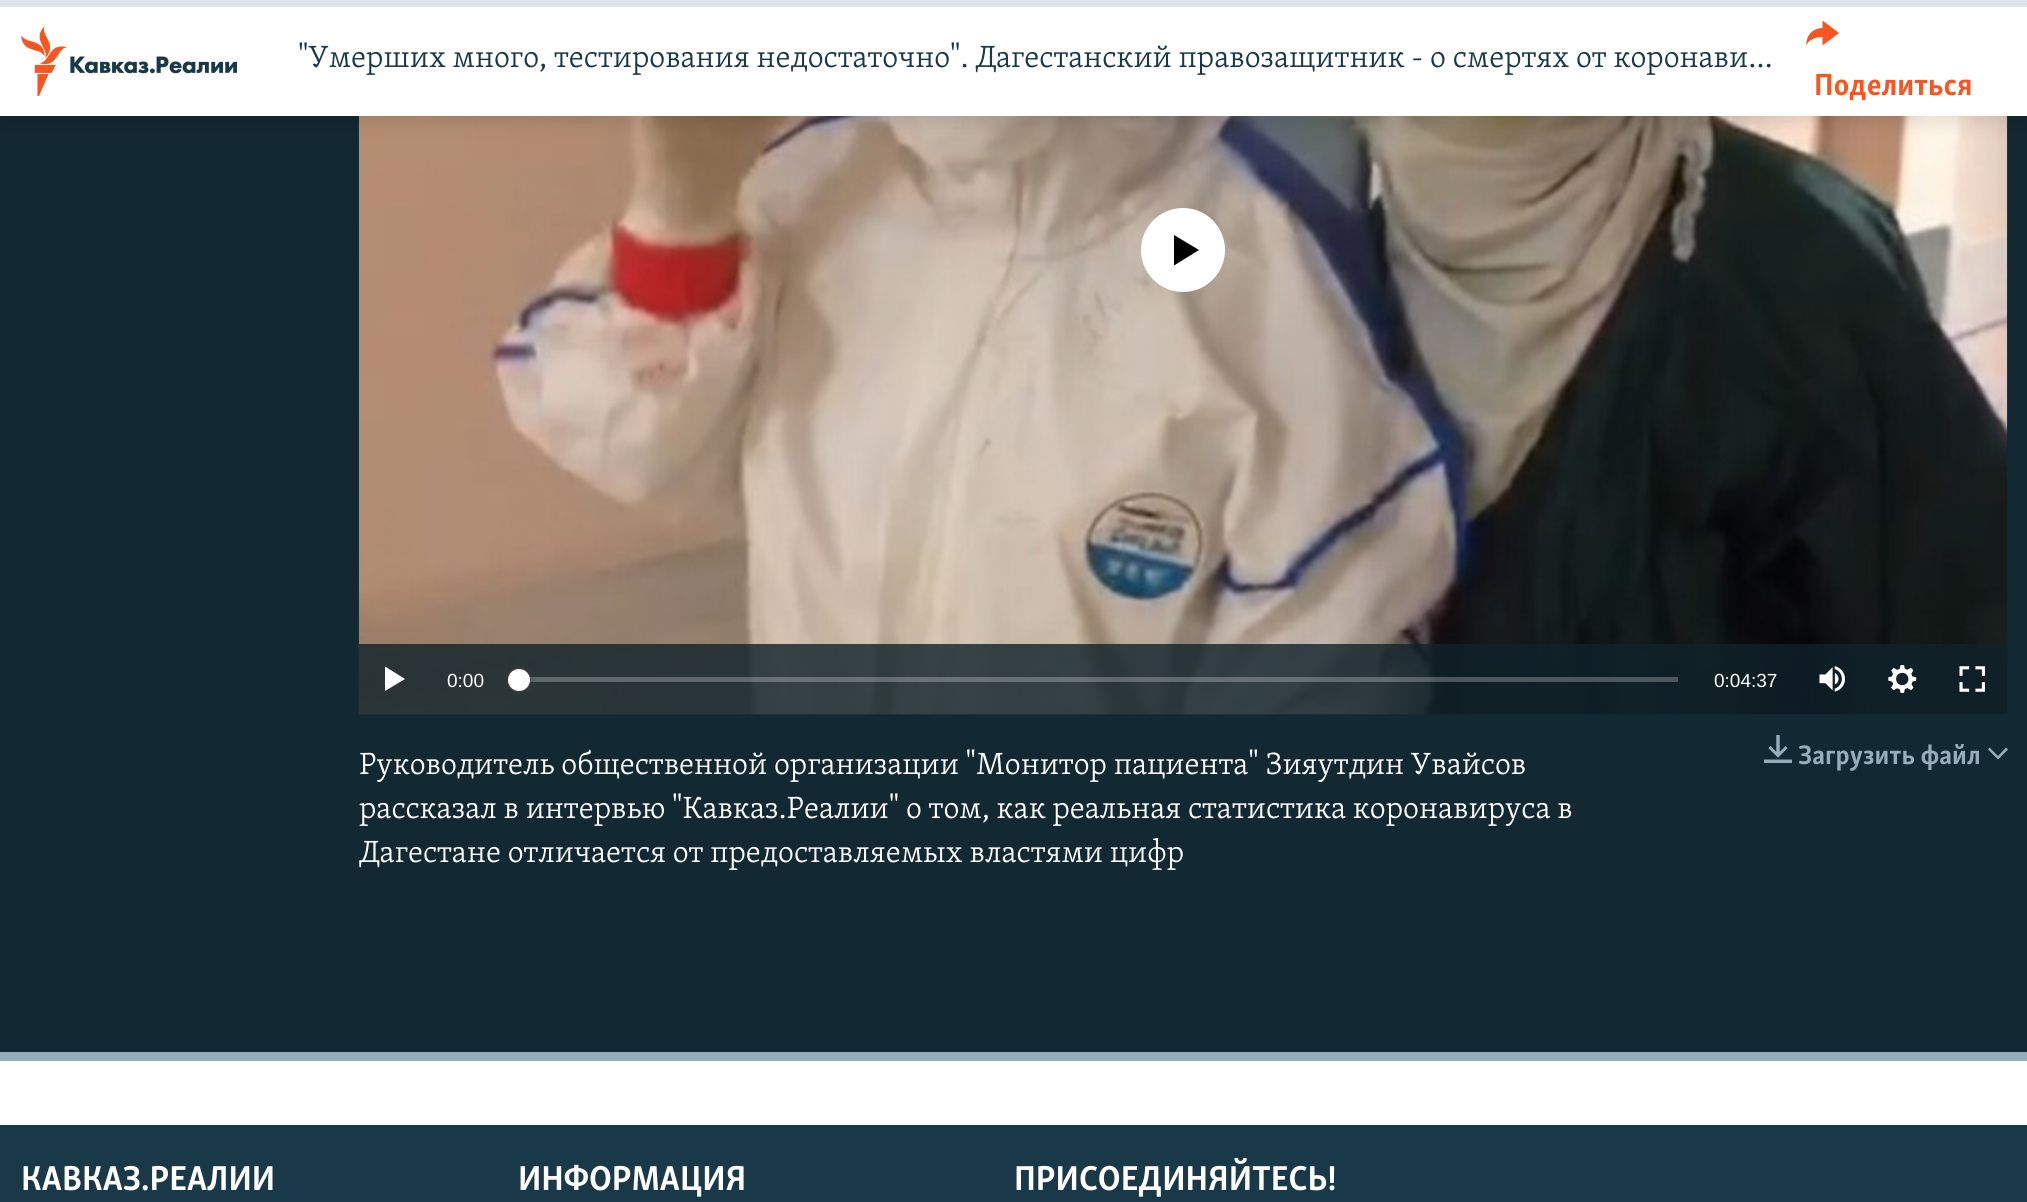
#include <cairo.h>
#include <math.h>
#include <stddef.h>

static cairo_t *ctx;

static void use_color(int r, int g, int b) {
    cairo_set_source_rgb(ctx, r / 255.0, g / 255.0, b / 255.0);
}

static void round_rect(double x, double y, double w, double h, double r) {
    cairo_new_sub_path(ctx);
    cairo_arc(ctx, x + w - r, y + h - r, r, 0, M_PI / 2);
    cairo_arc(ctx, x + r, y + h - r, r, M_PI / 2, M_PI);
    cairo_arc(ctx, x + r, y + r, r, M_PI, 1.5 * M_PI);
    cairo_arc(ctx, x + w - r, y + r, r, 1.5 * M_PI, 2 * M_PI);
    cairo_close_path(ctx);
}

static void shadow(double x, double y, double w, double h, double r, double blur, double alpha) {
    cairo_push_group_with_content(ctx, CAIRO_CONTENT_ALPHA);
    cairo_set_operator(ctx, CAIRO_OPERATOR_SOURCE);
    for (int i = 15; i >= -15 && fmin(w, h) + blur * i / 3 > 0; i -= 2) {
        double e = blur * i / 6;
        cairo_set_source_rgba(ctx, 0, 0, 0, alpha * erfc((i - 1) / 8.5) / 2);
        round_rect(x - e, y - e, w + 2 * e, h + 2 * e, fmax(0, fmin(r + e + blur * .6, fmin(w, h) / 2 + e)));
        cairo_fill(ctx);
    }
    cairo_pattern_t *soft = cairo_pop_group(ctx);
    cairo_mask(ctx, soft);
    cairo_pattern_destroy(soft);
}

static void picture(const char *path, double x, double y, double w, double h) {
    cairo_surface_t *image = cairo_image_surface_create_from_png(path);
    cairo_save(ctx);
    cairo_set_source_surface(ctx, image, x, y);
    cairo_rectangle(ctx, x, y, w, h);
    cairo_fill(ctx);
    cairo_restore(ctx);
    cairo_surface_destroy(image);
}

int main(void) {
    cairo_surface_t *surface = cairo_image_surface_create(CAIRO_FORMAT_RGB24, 2027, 1202);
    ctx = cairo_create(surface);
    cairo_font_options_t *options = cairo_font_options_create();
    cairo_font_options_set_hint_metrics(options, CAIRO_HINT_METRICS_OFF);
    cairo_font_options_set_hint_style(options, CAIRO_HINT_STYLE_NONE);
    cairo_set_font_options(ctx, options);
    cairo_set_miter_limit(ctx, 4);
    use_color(255, 255, 255);
    cairo_paint(ctx);
    use_color(18, 40, 50);
    cairo_rectangle(ctx, 0, 116, 2027, 936);
    cairo_fill(ctx);
    picture("img2.png", 358, 116, 1650, 599);
    use_color(0, 0, 0);
    shadow(0, 9, 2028, 115, 0, 9, 0.1);
    use_color(255, 255, 255);
    cairo_rectangle(ctx, 0, 7, 2027, 109);
    cairo_fill(ctx);
    use_color(220, 228, 232);
    cairo_rectangle(ctx, 0, 0, 2027, 7);
    cairo_fill(ctx);
    picture("img1.png", 21, 26, 217, 70);
    cairo_select_font_face(ctx, "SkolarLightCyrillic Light", CAIRO_FONT_SLANT_NORMAL, CAIRO_FONT_WEIGHT_NORMAL);
    cairo_set_font_size(ctx, 31.5);
    use_color(26, 57, 72);
    cairo_move_to(ctx, 298, 67);
    cairo_show_text(ctx, "\"Умерших много, тестирования недостаточно\". Дагестанский правозащитник - о смертях от коронави…");
    use_color(250, 84, 32);
    cairo_new_path(ctx);
    cairo_move_to(ctx, 1806, 45.5);
    cairo_curve_to(ctx, 1806.5, 35, 1812, 28.5, 1822.5, 28);
    cairo_line_to(ctx, 1822.5, 20.5);
    cairo_line_to(ctx, 1839, 33);
    cairo_line_to(ctx, 1822.5, 45.5);
    cairo_line_to(ctx, 1822.5, 37);
    cairo_curve_to(ctx, 1816.5, 37, 1809, 39, 1806, 45.5);
    cairo_close_path(ctx);
    cairo_fill(ctx);
    cairo_select_font_face(ctx, "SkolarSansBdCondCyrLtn", CAIRO_FONT_SLANT_NORMAL, CAIRO_FONT_WEIGHT_BOLD);
    cairo_move_to(ctx, 1814, 95);
    cairo_show_text(ctx, "Поделиться");
    use_color(149, 173, 185);
    cairo_rectangle(ctx, 0, 1052, 2027, 9);
    cairo_fill(ctx);
    use_color(255, 255, 255);
    cairo_arc(ctx, 1183, 250, 42, 0, 2 * M_PI);
    cairo_fill(ctx);
    use_color(0, 0, 0);
    cairo_new_path(ctx);
    cairo_move_to(ctx, 1174, 265.5);
    cairo_line_to(ctx, 1199, 250);
    cairo_line_to(ctx, 1174, 235);
    cairo_close_path(ctx);
    cairo_fill(ctx);
    cairo_set_source_rgba(ctx, 0.063, 0.133, 0.169, 0.8);
    cairo_rectangle(ctx, 359, 644, 1648, 70);
    cairo_fill(ctx);
    use_color(255, 255, 255);
    cairo_new_path(ctx);
    cairo_move_to(ctx, 385, 691);
    cairo_line_to(ctx, 405, 679);
    cairo_line_to(ctx, 385, 666.5);
    cairo_close_path(ctx);
    cairo_fill(ctx);
    cairo_select_font_face(ctx, "Liberation Sans", CAIRO_FONT_SLANT_NORMAL, CAIRO_FONT_WEIGHT_NORMAL);
    cairo_set_font_size(ctx, 19);
    cairo_move_to(ctx, 447, 687);
    cairo_show_text(ctx, "0:00");
    cairo_set_source_rgba(ctx, 1, 1, 1, 0.25);
    cairo_rectangle(ctx, 529, 677, 1149, 5);
    cairo_fill(ctx);
    use_color(65, 65, 68);
    shadow(508, 669, 22, 22, 11, 2.5, 1);
    use_color(255, 255, 255);
    cairo_arc(ctx, 519, 680, 11, 0, 2 * M_PI);
    cairo_fill(ctx);
    cairo_move_to(ctx, 1714, 687);
    cairo_show_text(ctx, "0:04:37");
    picture("img3.png", 1819, 666, 26, 26);
    picture("img4.png", 1888, 665, 29, 28);
    picture("img5.png", 1959, 666, 26, 26);
    cairo_select_font_face(ctx, "SkolarLightCyrillic Light", CAIRO_FONT_SLANT_NORMAL, CAIRO_FONT_WEIGHT_NORMAL);
    cairo_set_font_size(ctx, 31.5);
    cairo_move_to(ctx, 359, 774);
    cairo_show_text(ctx, "Руководитель общественной организации \"Монитор пациента\" Зияутдин Увайсов");
    cairo_move_to(ctx, 359, 818);
    cairo_show_text(ctx, "рассказал в интервью \"Кавказ.Реалии\" о том, как реальная статистика коронавируса в");
    cairo_move_to(ctx, 359, 862);
    cairo_show_text(ctx, "Дагестане отличается от предоставляемых властями цифр");
    picture("img6.png", 1764, 735, 28, 28);
    cairo_select_font_face(ctx, "SkolarSansBdCondCyrLtn", CAIRO_FONT_SLANT_NORMAL, CAIRO_FONT_WEIGHT_BOLD);
    cairo_set_font_size(ctx, 27.5);
    use_color(149, 173, 185);
    cairo_move_to(ctx, 1798, 764);
    cairo_show_text(ctx, "Загрузить файл");
    cairo_new_path(ctx);
    cairo_move_to(ctx, 1988, 749.5);
    cairo_line_to(ctx, 1998, 759.5);
    cairo_line_to(ctx, 2008, 749.5);
    cairo_line_to(ctx, 2006, 747.5);
    cairo_line_to(ctx, 1998, 756);
    cairo_line_to(ctx, 1989.5, 747.5);
    cairo_close_path(ctx);
    cairo_fill(ctx);
    use_color(26, 57, 72);
    cairo_rectangle(ctx, 0, 1125, 2027, 77);
    cairo_fill(ctx);
    cairo_set_font_size(ctx, 35.5);
    use_color(255, 255, 255);
    cairo_move_to(ctx, 21, 1190);
    cairo_show_text(ctx, "КАВКАЗ.РЕАЛИИ");
    cairo_move_to(ctx, 518, 1190);
    cairo_show_text(ctx, "ИНФОРМАЦИЯ");
    cairo_move_to(ctx, 1014, 1190);
    cairo_show_text(ctx, "ПРИСОЕДИНЯЙТЕСЬ!");
    cairo_surface_write_to_png(surface, "result.png");
    cairo_font_options_destroy(options);
    cairo_destroy(ctx);
    cairo_surface_destroy(surface);
    return 0;
}
